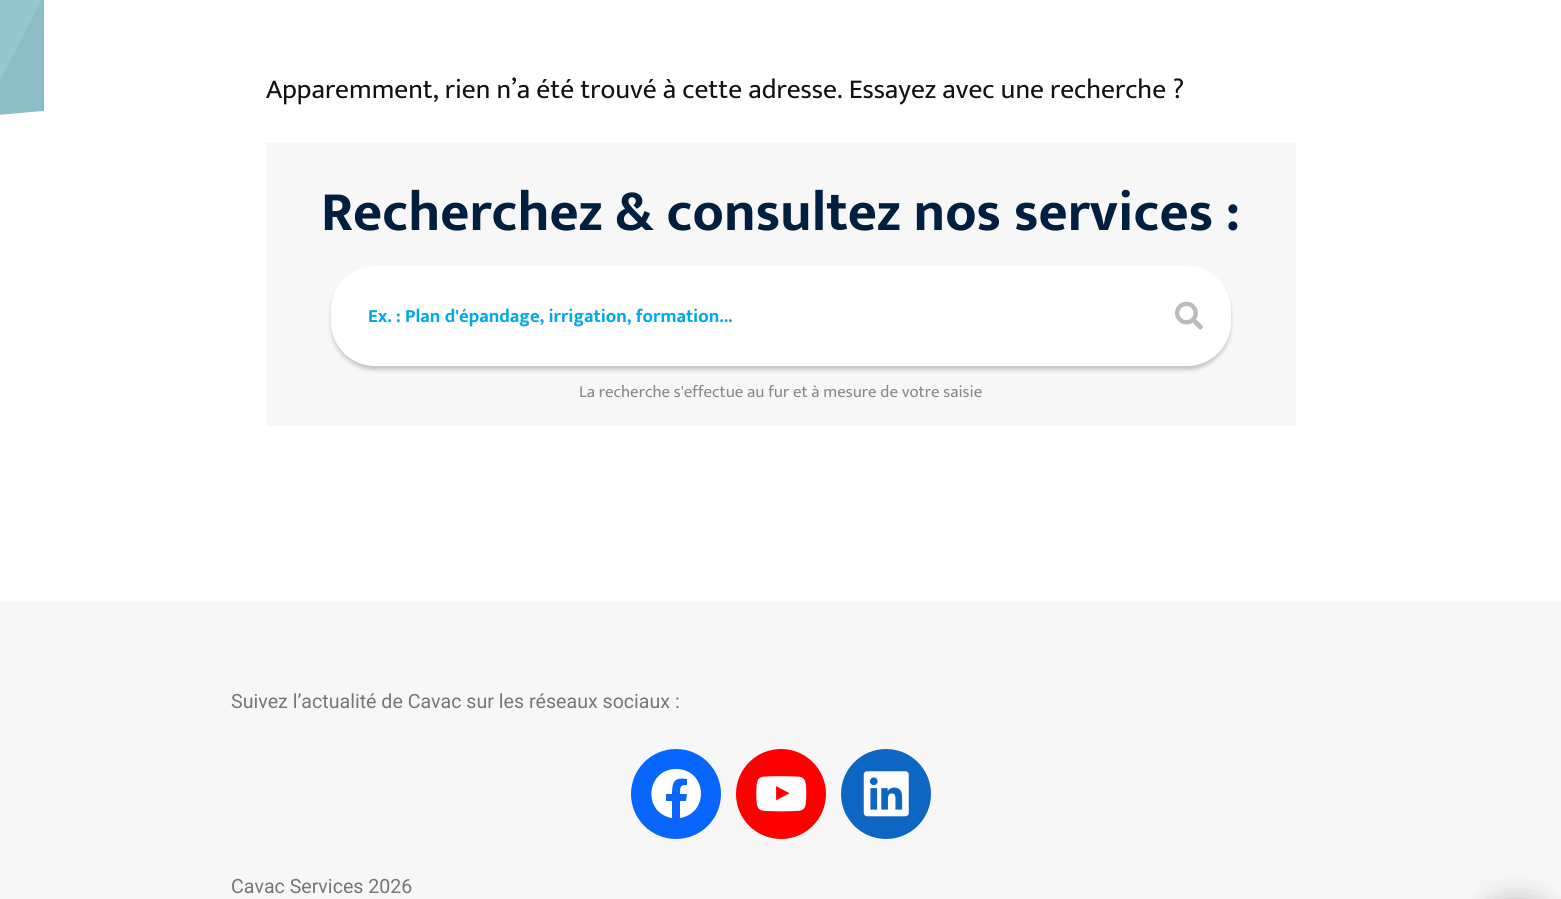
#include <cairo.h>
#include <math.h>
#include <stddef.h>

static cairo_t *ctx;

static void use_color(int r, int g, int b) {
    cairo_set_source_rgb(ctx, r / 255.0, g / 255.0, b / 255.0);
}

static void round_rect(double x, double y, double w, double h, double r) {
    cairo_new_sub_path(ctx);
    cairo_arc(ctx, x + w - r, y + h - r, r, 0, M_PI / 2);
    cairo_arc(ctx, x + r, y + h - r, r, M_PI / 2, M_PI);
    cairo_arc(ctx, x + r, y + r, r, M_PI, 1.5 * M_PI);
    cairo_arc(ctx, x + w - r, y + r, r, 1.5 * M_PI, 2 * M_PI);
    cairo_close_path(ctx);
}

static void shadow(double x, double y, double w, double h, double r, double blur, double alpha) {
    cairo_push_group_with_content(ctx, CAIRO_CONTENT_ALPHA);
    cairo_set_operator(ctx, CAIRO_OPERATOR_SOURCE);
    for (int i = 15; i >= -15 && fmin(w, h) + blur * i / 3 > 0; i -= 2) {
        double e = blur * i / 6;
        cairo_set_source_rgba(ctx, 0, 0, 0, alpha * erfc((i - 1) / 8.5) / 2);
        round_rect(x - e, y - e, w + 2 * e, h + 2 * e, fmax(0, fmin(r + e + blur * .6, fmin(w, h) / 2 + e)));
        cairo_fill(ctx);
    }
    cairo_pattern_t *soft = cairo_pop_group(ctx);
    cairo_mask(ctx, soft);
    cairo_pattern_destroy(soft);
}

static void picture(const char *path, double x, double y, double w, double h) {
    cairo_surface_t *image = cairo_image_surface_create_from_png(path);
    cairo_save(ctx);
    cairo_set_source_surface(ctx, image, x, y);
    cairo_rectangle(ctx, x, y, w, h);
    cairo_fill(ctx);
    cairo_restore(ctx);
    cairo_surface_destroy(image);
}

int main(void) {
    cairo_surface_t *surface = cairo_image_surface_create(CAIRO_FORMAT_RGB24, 1561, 899);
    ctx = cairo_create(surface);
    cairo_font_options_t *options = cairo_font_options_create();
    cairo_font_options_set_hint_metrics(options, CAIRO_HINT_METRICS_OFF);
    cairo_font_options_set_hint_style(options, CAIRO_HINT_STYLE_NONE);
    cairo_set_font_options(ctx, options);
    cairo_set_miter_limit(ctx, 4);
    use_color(255, 255, 255);
    cairo_paint(ctx);
    picture("img1.png", 0, 0, 44, 115);
    cairo_select_font_face(ctx, "Mukta", CAIRO_FONT_SLANT_NORMAL, CAIRO_FONT_WEIGHT_NORMAL);
    cairo_set_font_size(ctx, 27.5);
    use_color(17, 17, 17);
    cairo_move_to(ctx, 266, 98);
    cairo_show_text(ctx, "Apparemment, rien n’a été trouvé à cette adresse. Essayez avec une recherche ?");
    use_color(247, 247, 247);
    cairo_rectangle(ctx, 266, 143, 1030, 283);
    cairo_fill(ctx);
    cairo_select_font_face(ctx, "Mukta", CAIRO_FONT_SLANT_NORMAL, CAIRO_FONT_WEIGHT_BOLD);
    cairo_set_font_size(ctx, 56.25);
    use_color(0, 31, 63);
    cairo_move_to(ctx, 321, 230);
    cairo_show_text(ctx, "Recherchez & consultez nos services :");
    use_color(0, 0, 0);
    shadow(331, 270, 900, 100, 44, 2, 0.2);
    use_color(255, 255, 255);
    round_rect(331, 266, 900, 100, 44);
    cairo_fill(ctx);
    cairo_set_font_size(ctx, 18.75);
    use_color(0, 170, 232);
    cairo_move_to(ctx, 368, 322);
    cairo_show_text(ctx, "Ex. : Plan d'épandage, irrigation, formation...");
    picture("img2.png", 1175, 301, 28, 29);
    cairo_select_font_face(ctx, "Mukta", CAIRO_FONT_SLANT_NORMAL, CAIRO_FONT_WEIGHT_NORMAL);
    cairo_set_font_size(ctx, 16.9);
    use_color(136, 136, 136);
    cairo_move_to(ctx, 579, 397);
    cairo_show_text(ctx, "La recherche s'effectue au fur et à mesure de votre saisie");
    use_color(247, 247, 247);
    cairo_rectangle(ctx, 0, 601, 1561, 298);
    cairo_fill(ctx);
    cairo_select_font_face(ctx, "Roboto", CAIRO_FONT_SLANT_NORMAL, CAIRO_FONT_WEIGHT_NORMAL);
    cairo_set_font_size(ctx, 19.6);
    use_color(118, 118, 118);
    cairo_move_to(ctx, 231, 708);
    cairo_show_text(ctx, "Suivez l’actualité de Cavac sur les réseaux sociaux :");
    use_color(8, 102, 255);
    cairo_new_path(ctx);
    cairo_arc(ctx, 676, 794, 45, 0, 2 * M_PI);
    cairo_fill(ctx);
    use_color(255, 255, 255);
    cairo_new_path(ctx);
    cairo_move_to(ctx, 676, 769);
    cairo_curve_to(ctx, 646, 769, 642, 813, 672, 818);
    cairo_line_to(ctx, 672, 801);
    cairo_line_to(ctx, 666, 801);
    cairo_line_to(ctx, 666, 794);
    cairo_line_to(ctx, 672, 794);
    cairo_curve_to(ctx, 672, 782, 674, 777, 687, 779);
    cairo_line_to(ctx, 687, 785);
    cairo_curve_to(ctx, 680, 785, 680, 787, 680, 794);
    cairo_line_to(ctx, 687, 794);
    cairo_line_to(ctx, 686, 801);
    cairo_line_to(ctx, 680, 801);
    cairo_line_to(ctx, 680, 818);
    cairo_curve_to(ctx, 710, 813, 707, 769, 676, 769);
    cairo_close_path(ctx);
    cairo_fill(ctx);
    use_color(255, 0, 0);
    cairo_arc(ctx, 781, 794, 45, 0, 2 * M_PI);
    cairo_fill(ctx);
    picture("img3.png", 756, 776, 51, 36);
    use_color(13, 102, 194);
    cairo_arc(ctx, 886, 794, 45, 0, 2 * M_PI);
    cairo_fill(ctx);
    picture("img4.png", 863, 771, 46, 46);
    use_color(118, 118, 118);
    cairo_move_to(ctx, 231, 893);
    cairo_show_text(ctx, "Cavac Services 2026");
    use_color(0, 0, 0);
    shadow(1479, 899, 75, 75, 37.5, 14, 0.22);
    cairo_surface_write_to_png(surface, "result.png");
    cairo_font_options_destroy(options);
    cairo_destroy(ctx);
    cairo_surface_destroy(surface);
    return 0;
}
